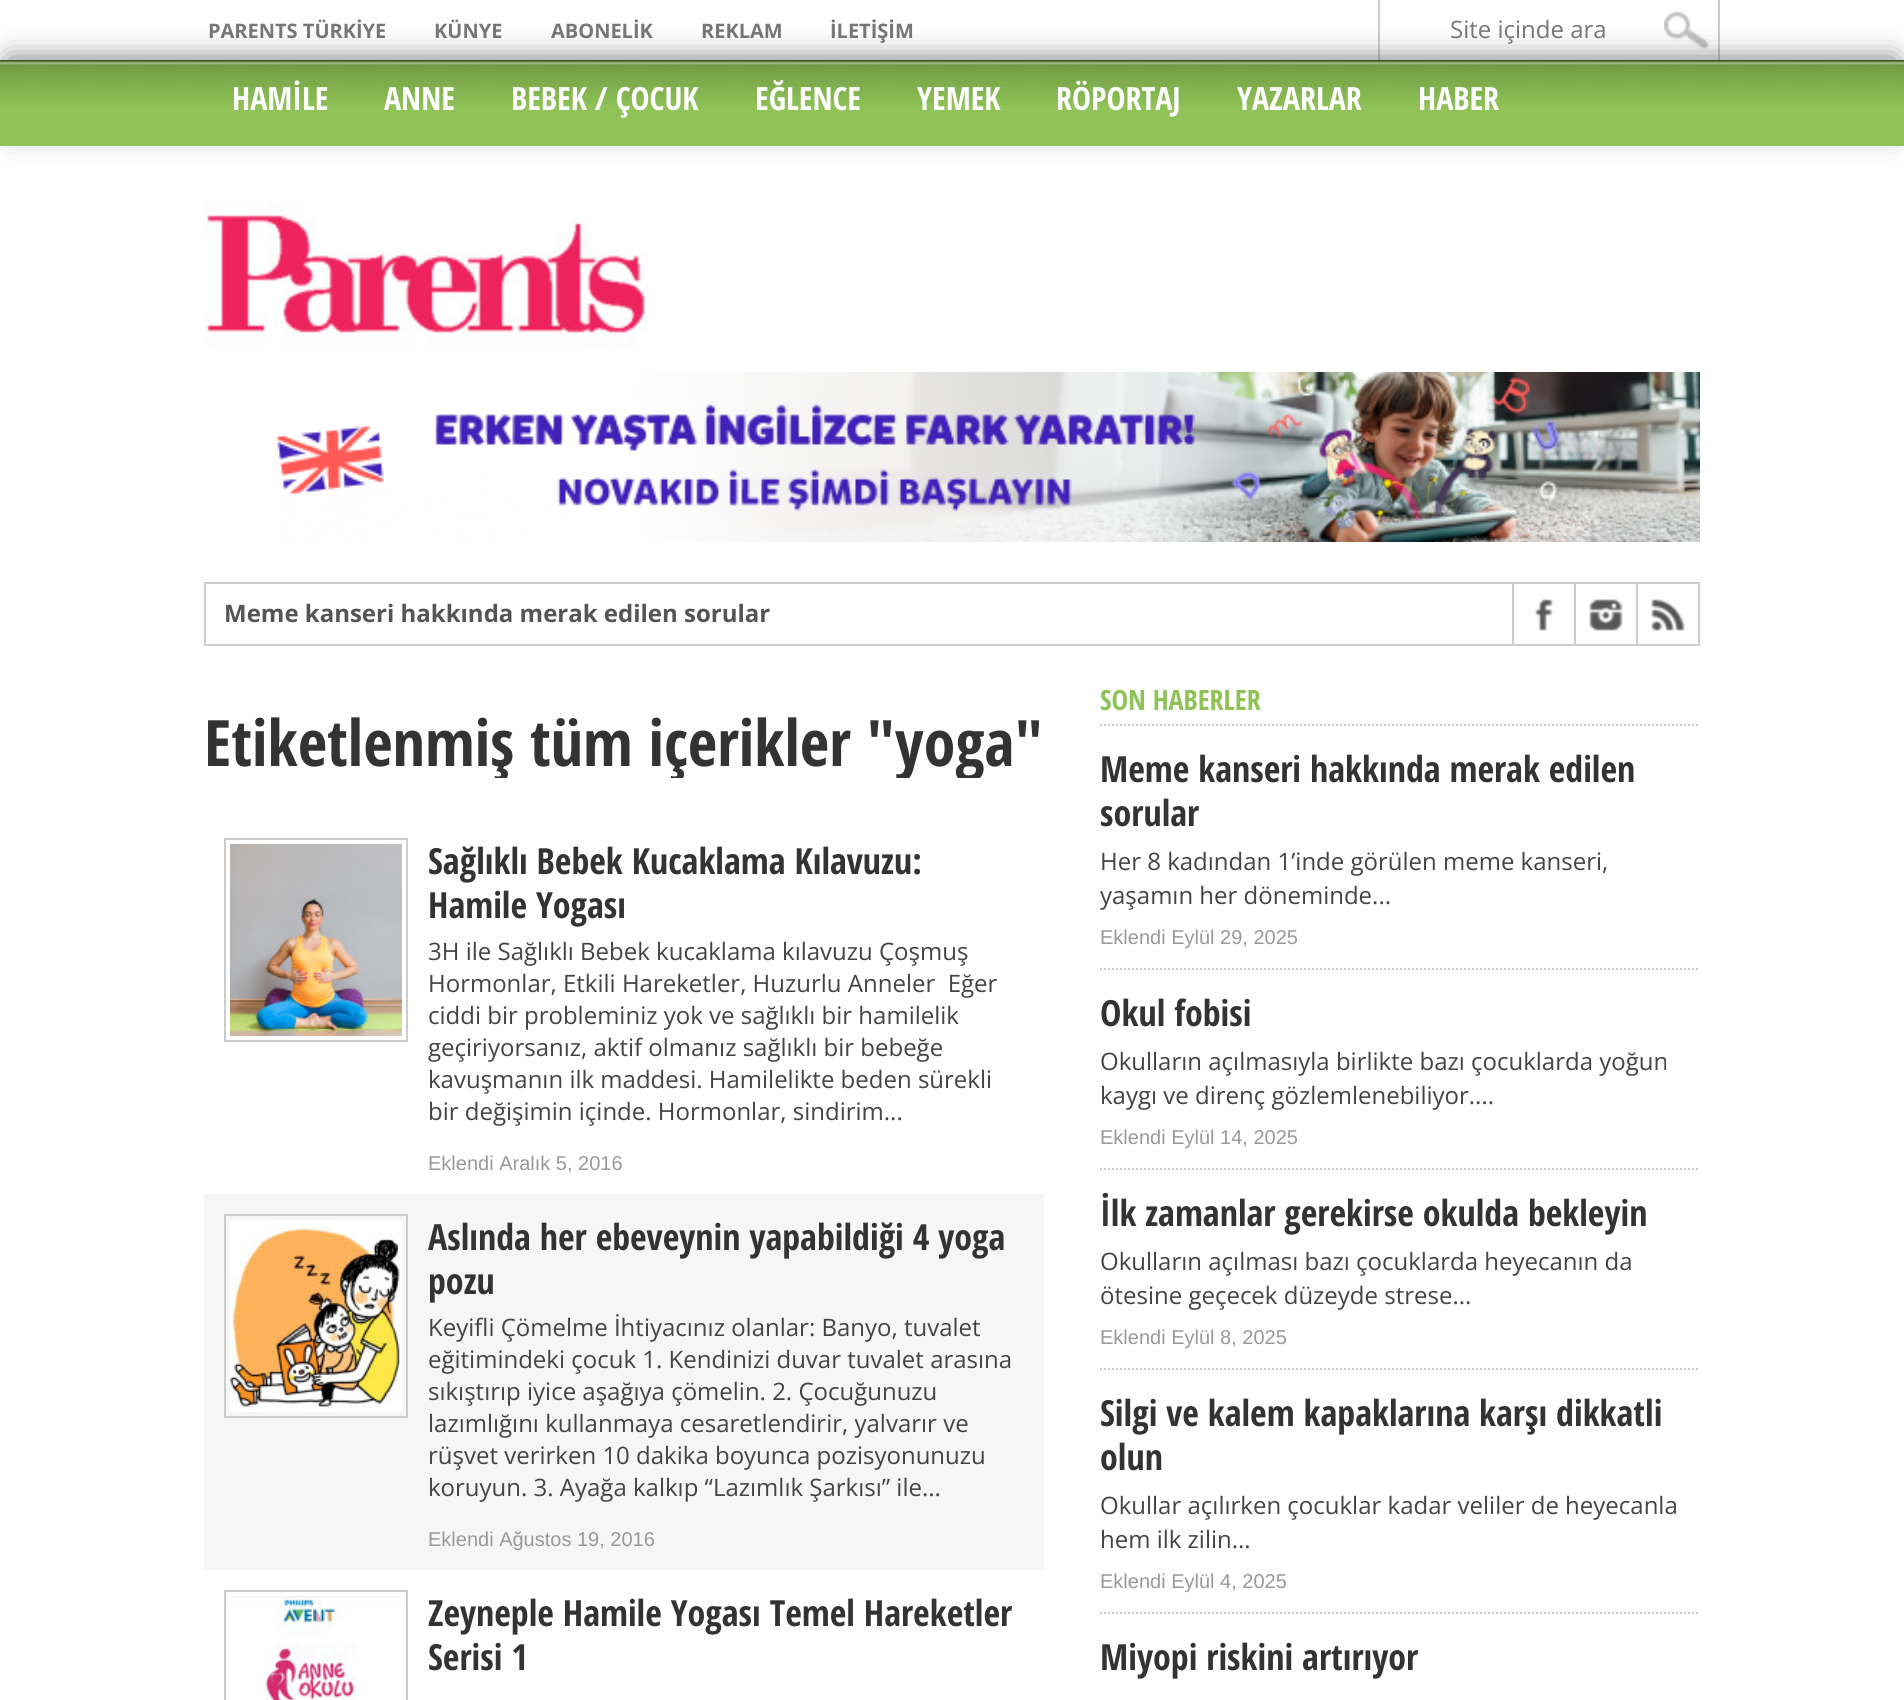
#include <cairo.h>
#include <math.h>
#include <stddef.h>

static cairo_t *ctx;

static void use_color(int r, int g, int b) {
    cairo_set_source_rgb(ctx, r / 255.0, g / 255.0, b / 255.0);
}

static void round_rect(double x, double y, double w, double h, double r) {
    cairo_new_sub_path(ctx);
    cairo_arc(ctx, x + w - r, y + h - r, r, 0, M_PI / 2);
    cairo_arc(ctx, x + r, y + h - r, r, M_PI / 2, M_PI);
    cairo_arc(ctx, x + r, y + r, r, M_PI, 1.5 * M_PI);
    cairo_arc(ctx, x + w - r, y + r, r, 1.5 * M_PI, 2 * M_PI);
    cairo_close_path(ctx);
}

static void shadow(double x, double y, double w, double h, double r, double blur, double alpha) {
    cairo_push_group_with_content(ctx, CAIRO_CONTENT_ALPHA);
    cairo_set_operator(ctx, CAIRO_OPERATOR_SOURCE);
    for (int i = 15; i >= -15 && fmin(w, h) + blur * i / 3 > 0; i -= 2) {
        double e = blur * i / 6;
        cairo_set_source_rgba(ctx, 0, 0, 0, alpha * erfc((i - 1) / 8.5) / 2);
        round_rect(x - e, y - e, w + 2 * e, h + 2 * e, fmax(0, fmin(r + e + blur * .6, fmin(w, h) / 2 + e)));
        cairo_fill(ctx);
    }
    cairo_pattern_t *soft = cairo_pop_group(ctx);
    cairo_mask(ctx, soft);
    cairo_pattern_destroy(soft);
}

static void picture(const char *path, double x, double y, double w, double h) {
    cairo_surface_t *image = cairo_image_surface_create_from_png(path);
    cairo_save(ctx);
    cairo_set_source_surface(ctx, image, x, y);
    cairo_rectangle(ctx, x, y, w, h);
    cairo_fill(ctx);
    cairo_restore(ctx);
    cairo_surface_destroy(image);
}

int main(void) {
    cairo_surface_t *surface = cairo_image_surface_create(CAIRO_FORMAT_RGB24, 1904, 1700);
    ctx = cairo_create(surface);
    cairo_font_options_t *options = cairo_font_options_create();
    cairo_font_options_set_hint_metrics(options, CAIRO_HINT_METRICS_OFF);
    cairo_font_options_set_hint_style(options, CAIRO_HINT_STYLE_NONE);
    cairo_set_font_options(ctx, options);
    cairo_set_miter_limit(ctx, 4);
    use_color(255, 255, 255);
    cairo_paint(ctx);
    cairo_select_font_face(ctx, "Open Sans", CAIRO_FONT_SLANT_NORMAL, CAIRO_FONT_WEIGHT_BOLD);
    cairo_set_font_size(ctx, 20);
    use_color(119, 119, 119);
    cairo_move_to(ctx, 208, 38);
    cairo_show_text(ctx, "PARENTS TÜRKİYE");
    cairo_move_to(ctx, 434, 38);
    cairo_show_text(ctx, "KÜNYE");
    cairo_move_to(ctx, 551, 38);
    cairo_show_text(ctx, "ABONELİK");
    cairo_move_to(ctx, 701, 38);
    cairo_show_text(ctx, "REKLAM");
    cairo_move_to(ctx, 830, 38);
    cairo_show_text(ctx, "İLETİŞİM");
    use_color(204, 204, 204);
    cairo_rectangle(ctx, 1718, 0, 2, 60);
    cairo_fill(ctx);
    cairo_rectangle(ctx, 1378, 0, 2, 60);
    cairo_fill(ctx);
    picture("img1.png", 1664, 11, 45, 38);
    cairo_select_font_face(ctx, "Open Sans", CAIRO_FONT_SLANT_NORMAL, CAIRO_FONT_WEIGHT_NORMAL);
    cairo_set_font_size(ctx, 24);
    use_color(119, 119, 119);
    cairo_move_to(ctx, 1450, 38);
    cairo_show_text(ctx, "Site içinde ara");
    use_color(85, 85, 85);
    shadow(10, 62, 1884, 66, 0, 15, 1);
    use_color(143, 195, 87);
    cairo_rectangle(ctx, 0, 60, 1904, 86);
    cairo_fill(ctx);
    picture("img2.png", 0, 60, 1904, 45);
    cairo_select_font_face(ctx, "Open Sans Condensed", CAIRO_FONT_SLANT_NORMAL, CAIRO_FONT_WEIGHT_BOLD);
    cairo_set_font_size(ctx, 32);
    use_color(255, 255, 255);
    cairo_move_to(ctx, 232, 110);
    cairo_show_text(ctx, "HAMİLE");
    cairo_move_to(ctx, 384, 110);
    cairo_show_text(ctx, "ANNE");
    cairo_move_to(ctx, 511, 110);
    cairo_show_text(ctx, "BEBEK / ÇOCUK");
    cairo_move_to(ctx, 755, 110);
    cairo_show_text(ctx, "EĞLENCE");
    cairo_move_to(ctx, 917, 110);
    cairo_show_text(ctx, "YEMEK");
    cairo_move_to(ctx, 1056, 110);
    cairo_show_text(ctx, "RÖPORTAJ");
    cairo_move_to(ctx, 1237, 110);
    cairo_show_text(ctx, "YAZARLAR");
    cairo_move_to(ctx, 1418, 110);
    cairo_show_text(ctx, "HABER");
    picture("img3.png", 204, 202, 444, 144);
    picture("img4.png", 277, 372, 1423, 170);
    cairo_rectangle(ctx, 205, 583, 1494, 62);
    use_color(204, 204, 204);
    cairo_stroke(ctx);
    cairo_select_font_face(ctx, "Open Sans", CAIRO_FONT_SLANT_NORMAL, CAIRO_FONT_WEIGHT_BOLD);
    cairo_set_font_size(ctx, 24);
    use_color(85, 85, 85);
    cairo_move_to(ctx, 224, 622);
    cairo_show_text(ctx, "Meme kanseri hakkında merak edilen sorular");
    use_color(204, 204, 204);
    cairo_rectangle(ctx, 1512, 584, 2, 60);
    cairo_fill(ctx);
    picture("img5.png", 1535, 599, 18, 32);
    cairo_rectangle(ctx, 1574, 584, 2, 60);
    cairo_fill(ctx);
    picture("img6.png", 1589, 599, 34, 32);
    cairo_rectangle(ctx, 1636, 584, 2, 60);
    cairo_fill(ctx);
    picture("img7.png", 1651, 599, 34, 32);
    cairo_save(ctx);
    cairo_rectangle(ctx, 204, 706, 840, 72);
    cairo_clip(ctx);
    cairo_select_font_face(ctx, "Open Sans Condensed", CAIRO_FONT_SLANT_NORMAL, CAIRO_FONT_WEIGHT_BOLD);
    cairo_set_font_size(ctx, 64);
    use_color(51, 51, 51);
    cairo_move_to(ctx, 204, 766);
    cairo_show_text(ctx, "Etiketlenmiş tüm içerikler \"yoga\"");
    cairo_restore(ctx);
    cairo_rectangle(ctx, 225, 839, 182, 202);
    cairo_stroke(ctx);
    picture("img8.png", 230, 844, 172, 192);
    cairo_select_font_face(ctx, "Open Sans Condensed", CAIRO_FONT_SLANT_NORMAL, CAIRO_FONT_WEIGHT_BOLD);
    cairo_set_font_size(ctx, 36);
    use_color(51, 51, 51);
    cairo_move_to(ctx, 428, 874);
    cairo_show_text(ctx, "Sağlıklı Bebek Kucaklama Kılavuzu:");
    cairo_move_to(ctx, 428, 918);
    cairo_show_text(ctx, "Hamile Yogası");
    cairo_select_font_face(ctx, "Open Sans", CAIRO_FONT_SLANT_NORMAL, CAIRO_FONT_WEIGHT_NORMAL);
    cairo_set_font_size(ctx, 24);
    use_color(68, 68, 68);
    cairo_move_to(ctx, 428, 960);
    cairo_show_text(ctx, "3H ile Sağlıklı Bebek kucaklama kılavuzu Çoşmuş");
    cairo_move_to(ctx, 428, 992);
    cairo_show_text(ctx, "Hormonlar, Etkili Hareketler, Huzurlu Anneler  Eğer");
    cairo_move_to(ctx, 428, 1024);
    cairo_show_text(ctx, "ciddi bir probleminiz yok ve sağlıklı bir hamilelik");
    cairo_move_to(ctx, 428, 1056);
    cairo_show_text(ctx, "geçiriyorsanız, aktif olmanız sağlıklı bir bebeğe");
    cairo_move_to(ctx, 428, 1088);
    cairo_show_text(ctx, "kavuşmanın ilk maddesi. Hamilelikte beden sürekli");
    cairo_move_to(ctx, 428, 1120);
    cairo_show_text(ctx, "bir değişimin içinde. Hormonlar, sindirim...");
    cairo_select_font_face(ctx, "Liberation Sans", CAIRO_FONT_SLANT_NORMAL, CAIRO_FONT_WEIGHT_NORMAL);
    cairo_set_font_size(ctx, 20);
    use_color(153, 153, 153);
    cairo_move_to(ctx, 428, 1170);
    cairo_show_text(ctx, "Eklendi Aralık 5, 2016");
    use_color(246, 246, 246);
    cairo_rectangle(ctx, 204, 1194, 840, 376);
    cairo_fill(ctx);
    cairo_rectangle(ctx, 225, 1215, 182, 202);
    use_color(204, 204, 204);
    cairo_stroke(ctx);
    picture("img9.png", 230, 1220, 172, 192);
    cairo_select_font_face(ctx, "Open Sans Condensed", CAIRO_FONT_SLANT_NORMAL, CAIRO_FONT_WEIGHT_BOLD);
    cairo_set_font_size(ctx, 36);
    use_color(51, 51, 51);
    cairo_move_to(ctx, 428, 1250);
    cairo_show_text(ctx, "Aslında her ebeveynin yapabildiği 4 yoga");
    cairo_move_to(ctx, 428, 1294);
    cairo_show_text(ctx, "pozu");
    cairo_select_font_face(ctx, "Open Sans", CAIRO_FONT_SLANT_NORMAL, CAIRO_FONT_WEIGHT_NORMAL);
    cairo_set_font_size(ctx, 24);
    use_color(68, 68, 68);
    cairo_move_to(ctx, 428, 1336);
    cairo_show_text(ctx, "Keyifli Çömelme İhtiyacınız olanlar: Banyo, tuvalet");
    cairo_move_to(ctx, 428, 1368);
    cairo_show_text(ctx, "eğitimindeki çocuk 1. Kendinizi duvar tuvalet arasına");
    cairo_move_to(ctx, 428, 1400);
    cairo_show_text(ctx, "sıkıştırıp iyice aşağıya çömelin. 2. Çocuğunuzu");
    cairo_move_to(ctx, 428, 1432);
    cairo_show_text(ctx, "lazımlığını kullanmaya cesaretlendirir, yalvarır ve");
    cairo_move_to(ctx, 428, 1464);
    cairo_show_text(ctx, "rüşvet verirken 10 dakika boyunca pozisyonunuzu");
    cairo_move_to(ctx, 428, 1496);
    cairo_show_text(ctx, "koruyun. 3. Ayağa kalkıp “Lazımlık Şarkısı” ile...");
    cairo_select_font_face(ctx, "Liberation Sans", CAIRO_FONT_SLANT_NORMAL, CAIRO_FONT_WEIGHT_NORMAL);
    cairo_set_font_size(ctx, 20);
    use_color(153, 153, 153);
    cairo_move_to(ctx, 428, 1546);
    cairo_show_text(ctx, "Eklendi Ağustos 19, 2016");
    cairo_rectangle(ctx, 225, 1591, 182, 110);
    use_color(204, 204, 204);
    cairo_stroke(ctx);
    picture("img10.png", 230, 1596, 172, 104);
    cairo_select_font_face(ctx, "Open Sans Condensed", CAIRO_FONT_SLANT_NORMAL, CAIRO_FONT_WEIGHT_BOLD);
    cairo_set_font_size(ctx, 36);
    use_color(51, 51, 51);
    cairo_move_to(ctx, 428, 1626);
    cairo_show_text(ctx, "Zeyneple Hamile Yogası Temel Hareketler");
    cairo_move_to(ctx, 428, 1670);
    cairo_show_text(ctx, "Serisi 1");
    cairo_new_path(ctx);
    cairo_move_to(ctx, 1100, 725);
    cairo_line_to(ctx, 1700, 725);
    use_color(204, 204, 204);
    cairo_set_dash(ctx, (double[]){2, 2}, 2, 0);
    cairo_stroke(ctx);
    cairo_set_font_size(ctx, 28);
    use_color(143, 195, 87);
    cairo_move_to(ctx, 1100, 710);
    cairo_show_text(ctx, "SON HABERLER");
    cairo_new_path(ctx);
    cairo_move_to(ctx, 1100, 969);
    cairo_line_to(ctx, 1700, 969);
    use_color(204, 204, 204);
    cairo_stroke(ctx);
    cairo_set_font_size(ctx, 36);
    use_color(51, 51, 51);
    cairo_move_to(ctx, 1100, 782);
    cairo_show_text(ctx, "Meme kanseri hakkında merak edilen");
    cairo_move_to(ctx, 1100, 826);
    cairo_show_text(ctx, "sorular");
    cairo_select_font_face(ctx, "Open Sans", CAIRO_FONT_SLANT_NORMAL, CAIRO_FONT_WEIGHT_NORMAL);
    cairo_set_font_size(ctx, 24);
    use_color(68, 68, 68);
    cairo_move_to(ctx, 1100, 870);
    cairo_show_text(ctx, "Her 8 kadından 1’inde görülen meme kanseri,");
    cairo_move_to(ctx, 1100, 904);
    cairo_show_text(ctx, "yaşamın her döneminde...");
    cairo_select_font_face(ctx, "Liberation Sans", CAIRO_FONT_SLANT_NORMAL, CAIRO_FONT_WEIGHT_NORMAL);
    cairo_set_font_size(ctx, 20);
    use_color(153, 153, 153);
    cairo_move_to(ctx, 1100, 944);
    cairo_show_text(ctx, "Eklendi Eylül 29, 2025");
    cairo_new_path(ctx);
    cairo_move_to(ctx, 1100, 1169);
    cairo_line_to(ctx, 1700, 1169);
    use_color(204, 204, 204);
    cairo_stroke(ctx);
    cairo_select_font_face(ctx, "Open Sans Condensed", CAIRO_FONT_SLANT_NORMAL, CAIRO_FONT_WEIGHT_BOLD);
    cairo_set_font_size(ctx, 36);
    use_color(51, 51, 51);
    cairo_move_to(ctx, 1100, 1026);
    cairo_show_text(ctx, "Okul fobisi");
    cairo_select_font_face(ctx, "Open Sans", CAIRO_FONT_SLANT_NORMAL, CAIRO_FONT_WEIGHT_NORMAL);
    cairo_set_font_size(ctx, 24);
    use_color(68, 68, 68);
    cairo_move_to(ctx, 1100, 1070);
    cairo_show_text(ctx, "Okulların açılmasıyla birlikte bazı çocuklarda yoğun");
    cairo_move_to(ctx, 1100, 1104);
    cairo_show_text(ctx, "kaygı ve direnç gözlemlenebiliyor....");
    cairo_select_font_face(ctx, "Liberation Sans", CAIRO_FONT_SLANT_NORMAL, CAIRO_FONT_WEIGHT_NORMAL);
    cairo_set_font_size(ctx, 20);
    use_color(153, 153, 153);
    cairo_move_to(ctx, 1100, 1144);
    cairo_show_text(ctx, "Eklendi Eylül 14, 2025");
    cairo_new_path(ctx);
    cairo_move_to(ctx, 1100, 1369);
    cairo_line_to(ctx, 1700, 1369);
    use_color(204, 204, 204);
    cairo_stroke(ctx);
    cairo_select_font_face(ctx, "Open Sans Condensed", CAIRO_FONT_SLANT_NORMAL, CAIRO_FONT_WEIGHT_BOLD);
    cairo_set_font_size(ctx, 36);
    use_color(51, 51, 51);
    cairo_move_to(ctx, 1100, 1226);
    cairo_show_text(ctx, "İlk zamanlar gerekirse okulda bekleyin");
    cairo_select_font_face(ctx, "Open Sans", CAIRO_FONT_SLANT_NORMAL, CAIRO_FONT_WEIGHT_NORMAL);
    cairo_set_font_size(ctx, 24);
    use_color(68, 68, 68);
    cairo_move_to(ctx, 1100, 1270);
    cairo_show_text(ctx, "Okulların açılması bazı çocuklarda heyecanın da");
    cairo_move_to(ctx, 1100, 1304);
    cairo_show_text(ctx, "ötesine geçecek düzeyde strese...");
    cairo_select_font_face(ctx, "Liberation Sans", CAIRO_FONT_SLANT_NORMAL, CAIRO_FONT_WEIGHT_NORMAL);
    cairo_set_font_size(ctx, 20);
    use_color(153, 153, 153);
    cairo_move_to(ctx, 1100, 1344);
    cairo_show_text(ctx, "Eklendi Eylül 8, 2025");
    cairo_new_path(ctx);
    cairo_move_to(ctx, 1100, 1613);
    cairo_line_to(ctx, 1700, 1613);
    use_color(204, 204, 204);
    cairo_stroke(ctx);
    cairo_select_font_face(ctx, "Open Sans Condensed", CAIRO_FONT_SLANT_NORMAL, CAIRO_FONT_WEIGHT_BOLD);
    cairo_set_font_size(ctx, 36);
    use_color(51, 51, 51);
    cairo_move_to(ctx, 1100, 1426);
    cairo_show_text(ctx, "Silgi ve kalem kapaklarına karşı dikkatli");
    cairo_move_to(ctx, 1100, 1470);
    cairo_show_text(ctx, "olun");
    cairo_select_font_face(ctx, "Open Sans", CAIRO_FONT_SLANT_NORMAL, CAIRO_FONT_WEIGHT_NORMAL);
    cairo_set_font_size(ctx, 24);
    use_color(68, 68, 68);
    cairo_move_to(ctx, 1100, 1514);
    cairo_show_text(ctx, "Okullar açılırken çocuklar kadar veliler de heyecanla");
    cairo_move_to(ctx, 1100, 1548);
    cairo_show_text(ctx, "hem ilk zilin...");
    cairo_select_font_face(ctx, "Liberation Sans", CAIRO_FONT_SLANT_NORMAL, CAIRO_FONT_WEIGHT_NORMAL);
    cairo_set_font_size(ctx, 20);
    use_color(153, 153, 153);
    cairo_move_to(ctx, 1100, 1588);
    cairo_show_text(ctx, "Eklendi Eylül 4, 2025");
    cairo_select_font_face(ctx, "Open Sans Condensed", CAIRO_FONT_SLANT_NORMAL, CAIRO_FONT_WEIGHT_BOLD);
    cairo_set_font_size(ctx, 36);
    use_color(51, 51, 51);
    cairo_move_to(ctx, 1100, 1670);
    cairo_show_text(ctx, "Miyopi riskini artırıyor");
    cairo_surface_write_to_png(surface, "result.png");
    cairo_font_options_destroy(options);
    cairo_destroy(ctx);
    cairo_surface_destroy(surface);
    return 0;
}
